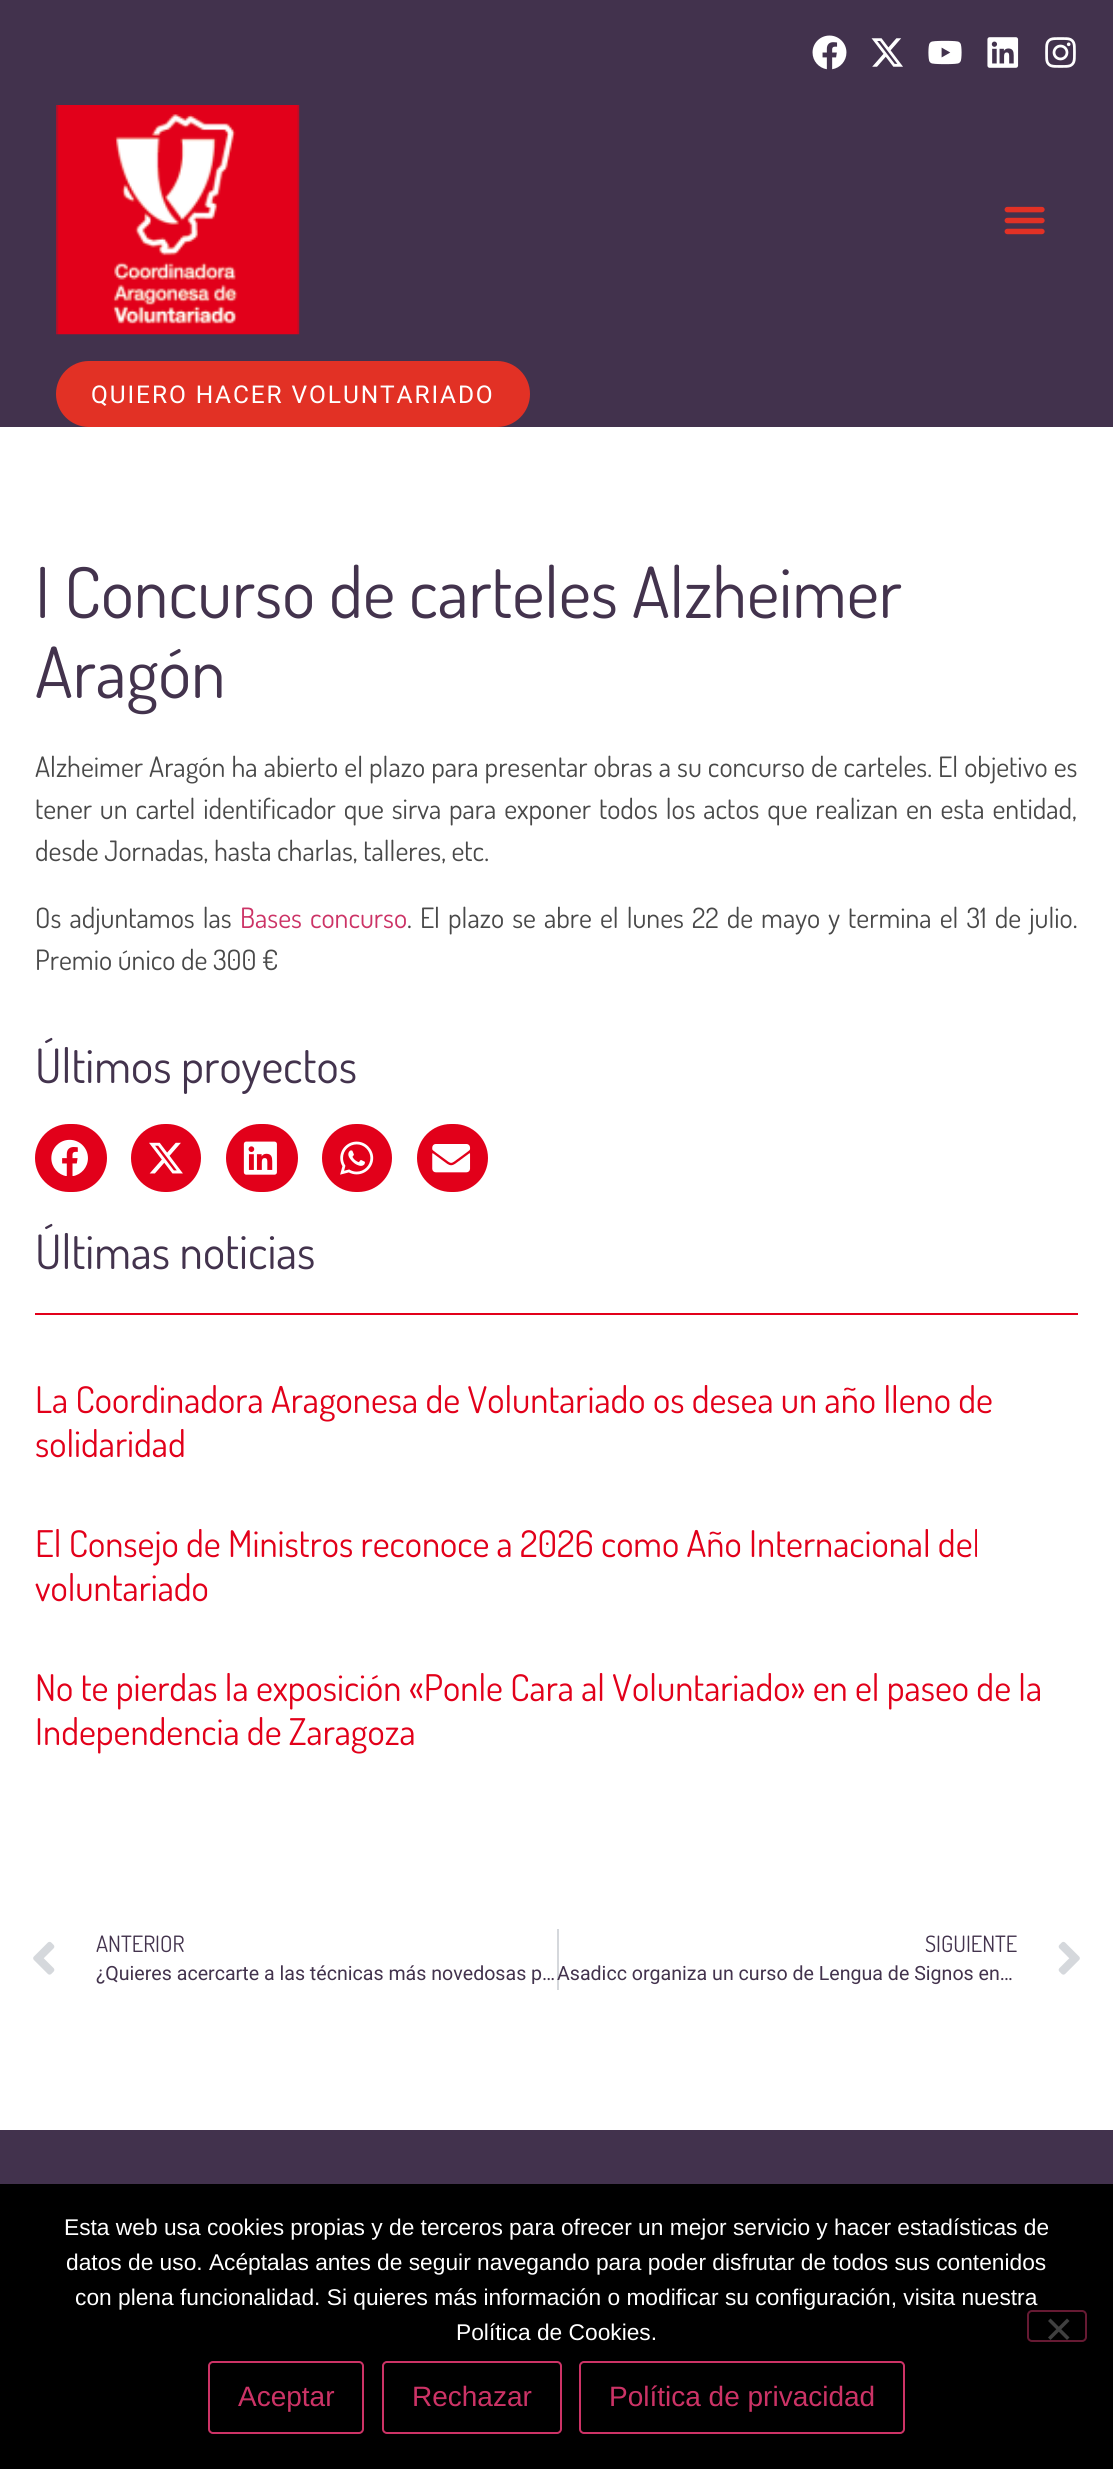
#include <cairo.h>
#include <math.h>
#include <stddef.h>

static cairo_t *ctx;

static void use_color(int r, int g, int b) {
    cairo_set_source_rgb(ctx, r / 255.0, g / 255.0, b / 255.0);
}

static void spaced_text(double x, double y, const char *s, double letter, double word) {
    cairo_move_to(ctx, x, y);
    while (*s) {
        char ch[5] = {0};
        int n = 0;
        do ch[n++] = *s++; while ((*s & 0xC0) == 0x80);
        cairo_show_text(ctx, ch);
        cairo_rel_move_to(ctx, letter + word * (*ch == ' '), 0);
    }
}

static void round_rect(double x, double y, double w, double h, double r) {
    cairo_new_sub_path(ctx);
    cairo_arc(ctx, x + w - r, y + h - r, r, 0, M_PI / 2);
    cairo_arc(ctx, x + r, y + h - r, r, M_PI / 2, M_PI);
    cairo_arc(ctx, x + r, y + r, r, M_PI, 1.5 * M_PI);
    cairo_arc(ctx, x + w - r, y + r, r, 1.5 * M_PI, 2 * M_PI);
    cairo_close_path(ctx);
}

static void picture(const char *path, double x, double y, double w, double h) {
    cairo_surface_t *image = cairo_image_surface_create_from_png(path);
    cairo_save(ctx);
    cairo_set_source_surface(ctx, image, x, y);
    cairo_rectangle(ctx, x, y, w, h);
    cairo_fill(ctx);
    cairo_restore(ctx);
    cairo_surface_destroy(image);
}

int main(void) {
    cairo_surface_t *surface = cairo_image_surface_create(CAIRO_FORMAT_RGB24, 1113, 2469);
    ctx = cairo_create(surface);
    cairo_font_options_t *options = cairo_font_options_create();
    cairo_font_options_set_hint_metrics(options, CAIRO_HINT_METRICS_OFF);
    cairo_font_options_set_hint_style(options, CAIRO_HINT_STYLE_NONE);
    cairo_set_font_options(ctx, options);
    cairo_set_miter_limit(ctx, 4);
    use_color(255, 255, 255);
    cairo_paint(ctx);
    use_color(66, 50, 77);
    cairo_rectangle(ctx, 0, 0, 1113, 427);
    cairo_fill(ctx);
    picture("img1.png", 812, 35, 35, 35);
    picture("img2.png", 871, 38, 32, 29);
    picture("img3.png", 928, 40, 34, 25);
    picture("img4.png", 987, 37, 32, 31);
    picture("img5.png", 1045, 37, 31, 31);
    picture("img6.png", 56, 105, 244, 230);
    picture("img7.png", 1004, 206, 41, 29);
    use_color(226, 49, 37);
    round_rect(58, 363, 470, 62, 31);
    cairo_fill_preserve(ctx);
    cairo_set_line_width(ctx, 4);
    cairo_stroke(ctx);
    cairo_select_font_face(ctx, "Roboto", CAIRO_FONT_SLANT_NORMAL, CAIRO_FONT_WEIGHT_NORMAL);
    cairo_set_font_size(ctx, 24.5);
    use_color(255, 255, 255);
    spaced_text(91, 403, "QUIERO HACER VOLUNTARIADO", 1.9, 0);
    cairo_select_font_face(ctx, "Dosis", CAIRO_FONT_SLANT_NORMAL, CAIRO_FONT_WEIGHT_NORMAL);
    cairo_set_font_size(ctx, 70);
    use_color(67, 51, 77);
    cairo_move_to(ctx, 35, 618);
    cairo_show_text(ctx, "I Concurso de carteles Alzheimer");
    cairo_move_to(ctx, 35, 698);
    cairo_show_text(ctx, "Aragón");
    cairo_set_font_size(ctx, 28);
    use_color(73, 73, 73);
    spaced_text(35, 777, "Alzheimer Aragón ha abierto el plazo para presentar obras a su concurso de carteles. El objetivo es", 0, 0.5);
    spaced_text(35, 819, "tener un cartel identificador que sirva para exponer todos los actos que realizan en esta entidad,", 0, 2.25);
    cairo_move_to(ctx, 35, 861);
    cairo_show_text(ctx, "desde Jornadas, hasta charlas, talleres, etc.");
    spaced_text(35, 928, "Os adjuntamos las", 0, 2.5);
    use_color(204, 51, 102);
    spaced_text(240, 928, "Bases concurso", 0, 2.5);
    use_color(73, 73, 73);
    spaced_text(407, 928, ". El plazo se abre el lunes 22 de mayo y termina el 31 de julio.", 0, 2.5);
    cairo_move_to(ctx, 35, 970);
    cairo_show_text(ctx, "Premio único de 300 €");
    cairo_set_font_size(ctx, 47.25);
    use_color(67, 51, 77);
    cairo_move_to(ctx, 35, 1083);
    cairo_show_text(ctx, "Últimos proyectos");
    use_color(226, 0, 26);
    round_rect(35, 1124, 72, 68, 34);
    cairo_fill(ctx);
    picture("img8.png", 51, 1139, 37, 37);
    round_rect(131, 1124, 70, 68, 34);
    cairo_fill(ctx);
    picture("img9.png", 149, 1142, 34, 32);
    round_rect(226, 1124, 72, 68, 34);
    cairo_fill(ctx);
    picture("img10.png", 243, 1141, 34, 34);
    round_rect(322, 1124, 70, 68, 34);
    cairo_fill(ctx);
    picture("img11.png", 340, 1141, 34, 34);
    round_rect(417, 1124, 71, 68, 34);
    cairo_fill(ctx);
    picture("img12.png", 432, 1144, 39, 29);
    use_color(67, 51, 77);
    cairo_move_to(ctx, 35, 1269);
    cairo_show_text(ctx, "Últimas noticias");
    use_color(226, 0, 26);
    cairo_rectangle(ctx, 35, 1313, 1043, 2);
    cairo_fill(ctx);
    cairo_set_font_size(ctx, 36.75);
    cairo_move_to(ctx, 35, 1413);
    cairo_show_text(ctx, "La Coordinadora Aragonesa de Voluntariado os desea un año lleno de");
    cairo_move_to(ctx, 35, 1457);
    cairo_show_text(ctx, "solidaridad");
    cairo_move_to(ctx, 35, 1557);
    cairo_show_text(ctx, "El Consejo de Ministros reconoce a 2026 como Año Internacional del");
    cairo_move_to(ctx, 35, 1601);
    cairo_show_text(ctx, "voluntariado");
    cairo_move_to(ctx, 35, 1701);
    cairo_show_text(ctx, "No te pierdas la exposición «Ponle Cara al Voluntariado» en el paseo de la");
    cairo_move_to(ctx, 35, 1745);
    cairo_show_text(ctx, "Independencia de Zaragoza");
    picture("img13.png", 33, 1941, 22, 34);
    cairo_set_font_size(ctx, 22.5);
    use_color(67, 51, 77);
    cairo_move_to(ctx, 96, 1952);
    cairo_show_text(ctx, "ANTERIOR");
    cairo_select_font_face(ctx, "Roboto", CAIRO_FONT_SLANT_NORMAL, CAIRO_FONT_WEIGHT_NORMAL);
    cairo_set_font_size(ctx, 19.6);
    cairo_move_to(ctx, 96, 1980);
    cairo_show_text(ctx, "¿Quieres acercarte a las técnicas más novedosas p…");
    use_color(213, 216, 220);
    cairo_rectangle(ctx, 557, 1929, 2, 61);
    cairo_fill(ctx);
    cairo_select_font_face(ctx, "Dosis", CAIRO_FONT_SLANT_NORMAL, CAIRO_FONT_WEIGHT_NORMAL);
    cairo_set_font_size(ctx, 22.5);
    use_color(67, 51, 77);
    cairo_move_to(ctx, 925, 1952);
    cairo_show_text(ctx, "SIGUIENTE");
    cairo_select_font_face(ctx, "Roboto", CAIRO_FONT_SLANT_NORMAL, CAIRO_FONT_WEIGHT_NORMAL);
    cairo_set_font_size(ctx, 19.6);
    cairo_move_to(ctx, 557, 1980);
    cairo_show_text(ctx, "Asadicc organiza un curso de Lengua de Signos en…");
    picture("img14.png", 1058, 1941, 22, 34);
    use_color(66, 50, 77);
    cairo_rectangle(ctx, 0, 2130, 1113, 54);
    cairo_fill(ctx);
    use_color(0, 0, 0);
    cairo_rectangle(ctx, 0, 2184, 1113, 285);
    cairo_fill(ctx);
    cairo_select_font_face(ctx, "Liberation Sans", CAIRO_FONT_SLANT_NORMAL, CAIRO_FONT_WEIGHT_NORMAL);
    cairo_set_font_size(ctx, 22.75);
    use_color(255, 255, 255);
    cairo_move_to(ctx, 64, 2235);
    cairo_show_text(ctx, "Esta web usa cookies propias y de terceros para ofrecer un mejor servicio y hacer estadísticas de");
    cairo_move_to(ctx, 66, 2270);
    cairo_show_text(ctx, "datos de uso. Acéptalas antes de seguir navegando para poder disfrutar de todos sus contenidos");
    cairo_move_to(ctx, 75, 2305);
    cairo_show_text(ctx, "con plena funcionalidad. Si quieres más información o modificar su configuración, visita nuestra");
    cairo_move_to(ctx, 456, 2340);
    cairo_show_text(ctx, "Política de Cookies.");
    round_rect(1028, 2311, 58, 30, 4);
    use_color(102, 26, 51);
    cairo_set_line_width(ctx, 2);
    cairo_stroke(ctx);
    use_color(64, 64, 64);
    cairo_new_path(ctx);
    cairo_move_to(ctx, 1067, 2318.5);
    cairo_line_to(ctx, 1069.5, 2321);
    cairo_line_to(ctx, 1050.5, 2340);
    cairo_line_to(ctx, 1048, 2337.5);
    cairo_close_path(ctx);
    cairo_fill(ctx);
    cairo_new_path(ctx);
    cairo_move_to(ctx, 1048, 2321);
    cairo_line_to(ctx, 1050.5, 2318.5);
    cairo_line_to(ctx, 1069.5, 2337.5);
    cairo_line_to(ctx, 1067, 2340);
    cairo_close_path(ctx);
    cairo_fill(ctx);
    round_rect(209, 2362, 154, 71, 4);
    use_color(204, 51, 102);
    cairo_stroke(ctx);
    cairo_set_font_size(ctx, 28);
    cairo_move_to(ctx, 238, 2406);
    cairo_show_text(ctx, "Aceptar");
    round_rect(383, 2362, 178, 71, 4);
    cairo_stroke(ctx);
    cairo_move_to(ctx, 412, 2406);
    cairo_show_text(ctx, "Rechazar");
    round_rect(580, 2362, 324, 71, 4);
    cairo_stroke(ctx);
    cairo_move_to(ctx, 609, 2406);
    cairo_show_text(ctx, "Política de privacidad");
    cairo_surface_write_to_png(surface, "result.png");
    cairo_font_options_destroy(options);
    cairo_destroy(ctx);
    cairo_surface_destroy(surface);
    return 0;
}
